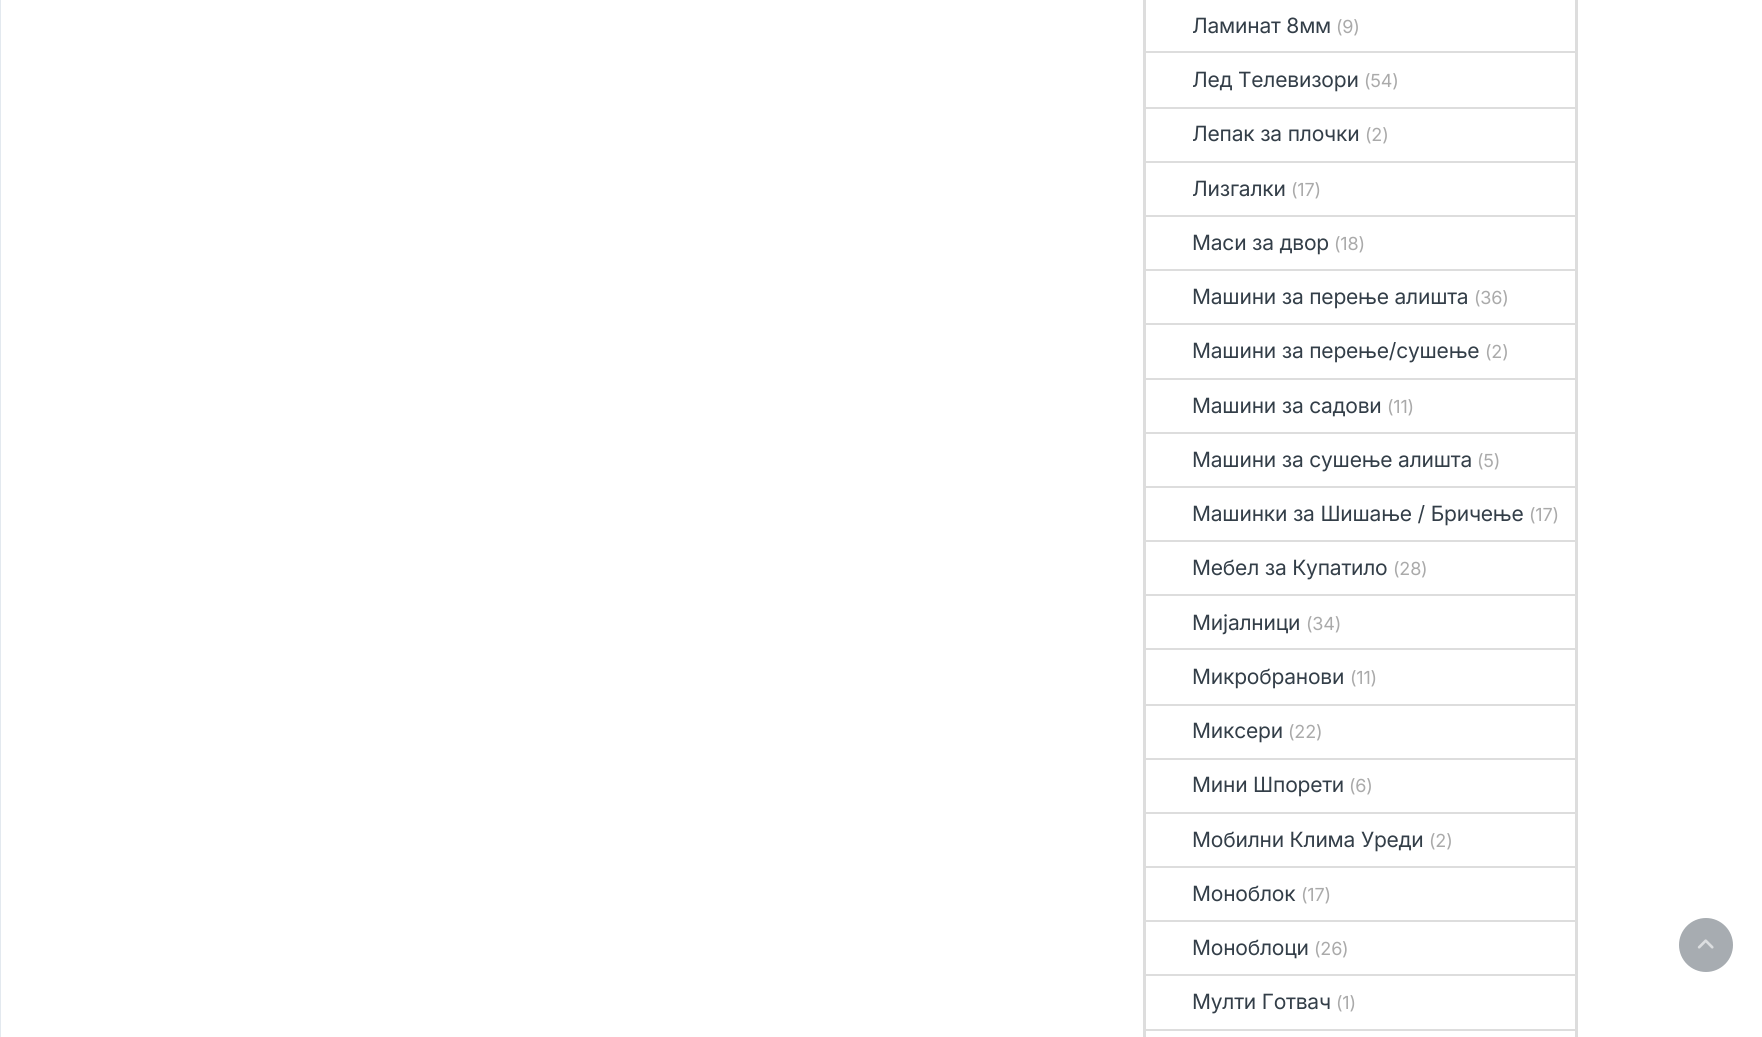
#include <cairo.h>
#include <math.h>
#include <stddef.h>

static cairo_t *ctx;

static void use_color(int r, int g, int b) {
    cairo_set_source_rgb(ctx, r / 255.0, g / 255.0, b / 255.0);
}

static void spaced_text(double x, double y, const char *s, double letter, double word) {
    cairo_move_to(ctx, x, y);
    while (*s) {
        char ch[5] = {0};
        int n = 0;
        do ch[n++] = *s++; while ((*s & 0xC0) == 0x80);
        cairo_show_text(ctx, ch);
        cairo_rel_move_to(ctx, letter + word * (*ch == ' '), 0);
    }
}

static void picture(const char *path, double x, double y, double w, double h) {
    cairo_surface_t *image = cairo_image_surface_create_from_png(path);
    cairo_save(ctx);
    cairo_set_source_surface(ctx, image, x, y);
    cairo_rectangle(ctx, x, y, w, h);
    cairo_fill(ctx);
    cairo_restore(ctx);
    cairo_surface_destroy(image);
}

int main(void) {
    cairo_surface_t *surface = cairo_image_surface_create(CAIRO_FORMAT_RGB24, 1762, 1037);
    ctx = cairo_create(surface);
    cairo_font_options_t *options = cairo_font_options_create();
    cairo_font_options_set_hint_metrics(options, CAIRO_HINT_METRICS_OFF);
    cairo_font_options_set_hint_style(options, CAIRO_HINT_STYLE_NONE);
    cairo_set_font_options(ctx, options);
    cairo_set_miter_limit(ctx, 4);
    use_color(255, 255, 255);
    cairo_paint(ctx);
    use_color(227, 233, 239);
    cairo_rectangle(ctx, 0, 0, 1, 1037);
    cairo_fill(ctx);
    cairo_rectangle(ctx, 1144.5, -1.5, 432, 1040);
    use_color(221, 221, 221);
    cairo_set_line_width(ctx, 3);
    cairo_stroke(ctx);
    cairo_select_font_face(ctx, "Inter", CAIRO_FONT_SLANT_NORMAL, CAIRO_FONT_WEIGHT_NORMAL);
    cairo_set_font_size(ctx, 21);
    use_color(51, 62, 72);
    spaced_text(1192, 33, "Ламинат 8мм", -0.2, 0);
    cairo_set_font_size(ctx, 18);
    use_color(170, 170, 170);
    spaced_text(1336, 33, "(9)", -0.2, 0);
    use_color(221, 221, 221);
    cairo_rectangle(ctx, 1146, 51, 429, 2);
    cairo_fill(ctx);
    cairo_set_font_size(ctx, 21);
    use_color(51, 62, 72);
    spaced_text(1192, 87, "Лед Телевизори", -0.2, 0);
    cairo_set_font_size(ctx, 18);
    use_color(170, 170, 170);
    spaced_text(1364, 87, "(54)", -0.2, 0);
    use_color(221, 221, 221);
    cairo_rectangle(ctx, 1146, 107, 429, 2);
    cairo_fill(ctx);
    cairo_set_font_size(ctx, 21);
    use_color(51, 62, 72);
    spaced_text(1192, 141, "Лепак за плочки", -0.2, 0);
    cairo_set_font_size(ctx, 18);
    use_color(170, 170, 170);
    spaced_text(1365, 141, "(2)", -0.2, 0);
    use_color(221, 221, 221);
    cairo_rectangle(ctx, 1146, 161, 429, 2);
    cairo_fill(ctx);
    cairo_set_font_size(ctx, 21);
    use_color(51, 62, 72);
    spaced_text(1192, 196, "Лизгалки", -0.2, 0);
    cairo_set_font_size(ctx, 18);
    use_color(170, 170, 170);
    spaced_text(1291, 196, "(17)", -0.2, 0);
    use_color(221, 221, 221);
    cairo_rectangle(ctx, 1146, 215, 429, 2);
    cairo_fill(ctx);
    cairo_set_font_size(ctx, 21);
    use_color(51, 62, 72);
    spaced_text(1192, 250, "Маси за двор", -0.2, 0);
    cairo_set_font_size(ctx, 18);
    use_color(170, 170, 170);
    spaced_text(1334, 250, "(18)", -0.2, 0);
    use_color(221, 221, 221);
    cairo_rectangle(ctx, 1146, 269, 429, 2);
    cairo_fill(ctx);
    cairo_set_font_size(ctx, 21);
    use_color(51, 62, 72);
    spaced_text(1192, 304, "Машини за перење алишта", -0.2, 0);
    cairo_set_font_size(ctx, 18);
    use_color(170, 170, 170);
    spaced_text(1474, 304, "(36)", -0.2, 0);
    use_color(221, 221, 221);
    cairo_rectangle(ctx, 1146, 323, 429, 2);
    cairo_fill(ctx);
    cairo_set_font_size(ctx, 21);
    use_color(51, 62, 72);
    spaced_text(1192, 358, "Машини за перење/сушење", -0.2, 0);
    cairo_set_font_size(ctx, 18);
    use_color(170, 170, 170);
    spaced_text(1485, 358, "(2)", -0.2, 0);
    use_color(221, 221, 221);
    cairo_rectangle(ctx, 1146, 378, 429, 2);
    cairo_fill(ctx);
    cairo_set_font_size(ctx, 21);
    use_color(51, 62, 72);
    spaced_text(1192, 413, "Машини за садови", -0.2, 0);
    cairo_set_font_size(ctx, 18);
    use_color(170, 170, 170);
    spaced_text(1387, 413, "(11)", -0.2, 0);
    use_color(221, 221, 221);
    cairo_rectangle(ctx, 1146, 432, 429, 2);
    cairo_fill(ctx);
    cairo_set_font_size(ctx, 21);
    use_color(51, 62, 72);
    spaced_text(1192, 467, "Машини за сушење алишта", -0.2, 0);
    cairo_set_font_size(ctx, 18);
    use_color(170, 170, 170);
    spaced_text(1477, 467, "(5)", -0.2, 0);
    use_color(221, 221, 221);
    cairo_rectangle(ctx, 1146, 486, 429, 2);
    cairo_fill(ctx);
    cairo_set_font_size(ctx, 21);
    use_color(51, 62, 72);
    spaced_text(1192, 521, "Машинки за Шишање / Бричење", -0.2, 0);
    cairo_set_font_size(ctx, 18);
    use_color(170, 170, 170);
    spaced_text(1529, 521, "(17)", -0.2, 0);
    use_color(221, 221, 221);
    cairo_rectangle(ctx, 1146, 540, 429, 2);
    cairo_fill(ctx);
    cairo_set_font_size(ctx, 21);
    use_color(51, 62, 72);
    spaced_text(1192, 575, "Мебел за Купатило", -0.2, 0);
    cairo_set_font_size(ctx, 18);
    use_color(170, 170, 170);
    spaced_text(1393, 575, "(28)", -0.2, 0);
    use_color(221, 221, 221);
    cairo_rectangle(ctx, 1146, 594, 429, 2);
    cairo_fill(ctx);
    cairo_set_font_size(ctx, 21);
    use_color(51, 62, 72);
    spaced_text(1192, 630, "Мијалници", -0.2, 0);
    cairo_set_font_size(ctx, 18);
    use_color(170, 170, 170);
    spaced_text(1306, 630, "(34)", -0.2, 0);
    use_color(221, 221, 221);
    cairo_rectangle(ctx, 1146, 648, 429, 2);
    cairo_fill(ctx);
    cairo_set_font_size(ctx, 21);
    use_color(51, 62, 72);
    spaced_text(1192, 684, "Микробранови", -0.2, 0);
    cairo_set_font_size(ctx, 18);
    use_color(170, 170, 170);
    spaced_text(1350, 684, "(11)", -0.2, 0);
    use_color(221, 221, 221);
    cairo_rectangle(ctx, 1146, 704, 429, 2);
    cairo_fill(ctx);
    cairo_set_font_size(ctx, 21);
    use_color(51, 62, 72);
    spaced_text(1192, 738, "Миксери", -0.2, 0);
    cairo_set_font_size(ctx, 18);
    use_color(170, 170, 170);
    spaced_text(1288, 738, "(22)", -0.2, 0);
    use_color(221, 221, 221);
    cairo_rectangle(ctx, 1146, 758, 429, 2);
    cairo_fill(ctx);
    cairo_set_font_size(ctx, 21);
    use_color(51, 62, 72);
    spaced_text(1192, 792, "Мини Шпорети", -0.2, 0);
    cairo_set_font_size(ctx, 18);
    use_color(170, 170, 170);
    spaced_text(1349, 792, "(6)", -0.2, 0);
    use_color(221, 221, 221);
    cairo_rectangle(ctx, 1146, 812, 429, 2);
    cairo_fill(ctx);
    cairo_set_font_size(ctx, 21);
    use_color(51, 62, 72);
    spaced_text(1192, 847, "Мобилни Клима Уреди", -0.2, 0);
    cairo_set_font_size(ctx, 18);
    use_color(170, 170, 170);
    spaced_text(1429, 847, "(2)", -0.2, 0);
    use_color(221, 221, 221);
    cairo_rectangle(ctx, 1146, 866, 429, 2);
    cairo_fill(ctx);
    cairo_set_font_size(ctx, 21);
    use_color(51, 62, 72);
    spaced_text(1192, 901, "Моноблок", -0.2, 0);
    cairo_set_font_size(ctx, 18);
    use_color(170, 170, 170);
    spaced_text(1301, 901, "(17)", -0.2, 0);
    use_color(221, 221, 221);
    cairo_rectangle(ctx, 1146, 920, 429, 2);
    cairo_fill(ctx);
    cairo_set_font_size(ctx, 21);
    use_color(51, 62, 72);
    spaced_text(1192, 955, "Моноблоци", -0.2, 0);
    cairo_set_font_size(ctx, 18);
    use_color(170, 170, 170);
    spaced_text(1314, 955, "(26)", -0.2, 0);
    use_color(221, 221, 221);
    cairo_rectangle(ctx, 1146, 974, 429, 2);
    cairo_fill(ctx);
    cairo_set_font_size(ctx, 21);
    use_color(51, 62, 72);
    spaced_text(1192, 1009, "Мулти Готвач", -0.2, 0);
    cairo_set_font_size(ctx, 18);
    use_color(170, 170, 170);
    spaced_text(1336, 1009, "(1)", -0.2, 0);
    use_color(221, 221, 221);
    cairo_rectangle(ctx, 1146, 1029, 429, 2);
    cairo_fill(ctx);
    use_color(167, 172, 177);
    cairo_arc(ctx, 1706, 945, 26, 0, 2 * M_PI);
    cairo_fill_preserve(ctx);
    cairo_set_line_width(ctx, 2);
    cairo_stroke(ctx);
    picture("img1.png", 1697, 939, 17, 10);
    cairo_surface_write_to_png(surface, "result.png");
    cairo_font_options_destroy(options);
    cairo_destroy(ctx);
    cairo_surface_destroy(surface);
    return 0;
}
